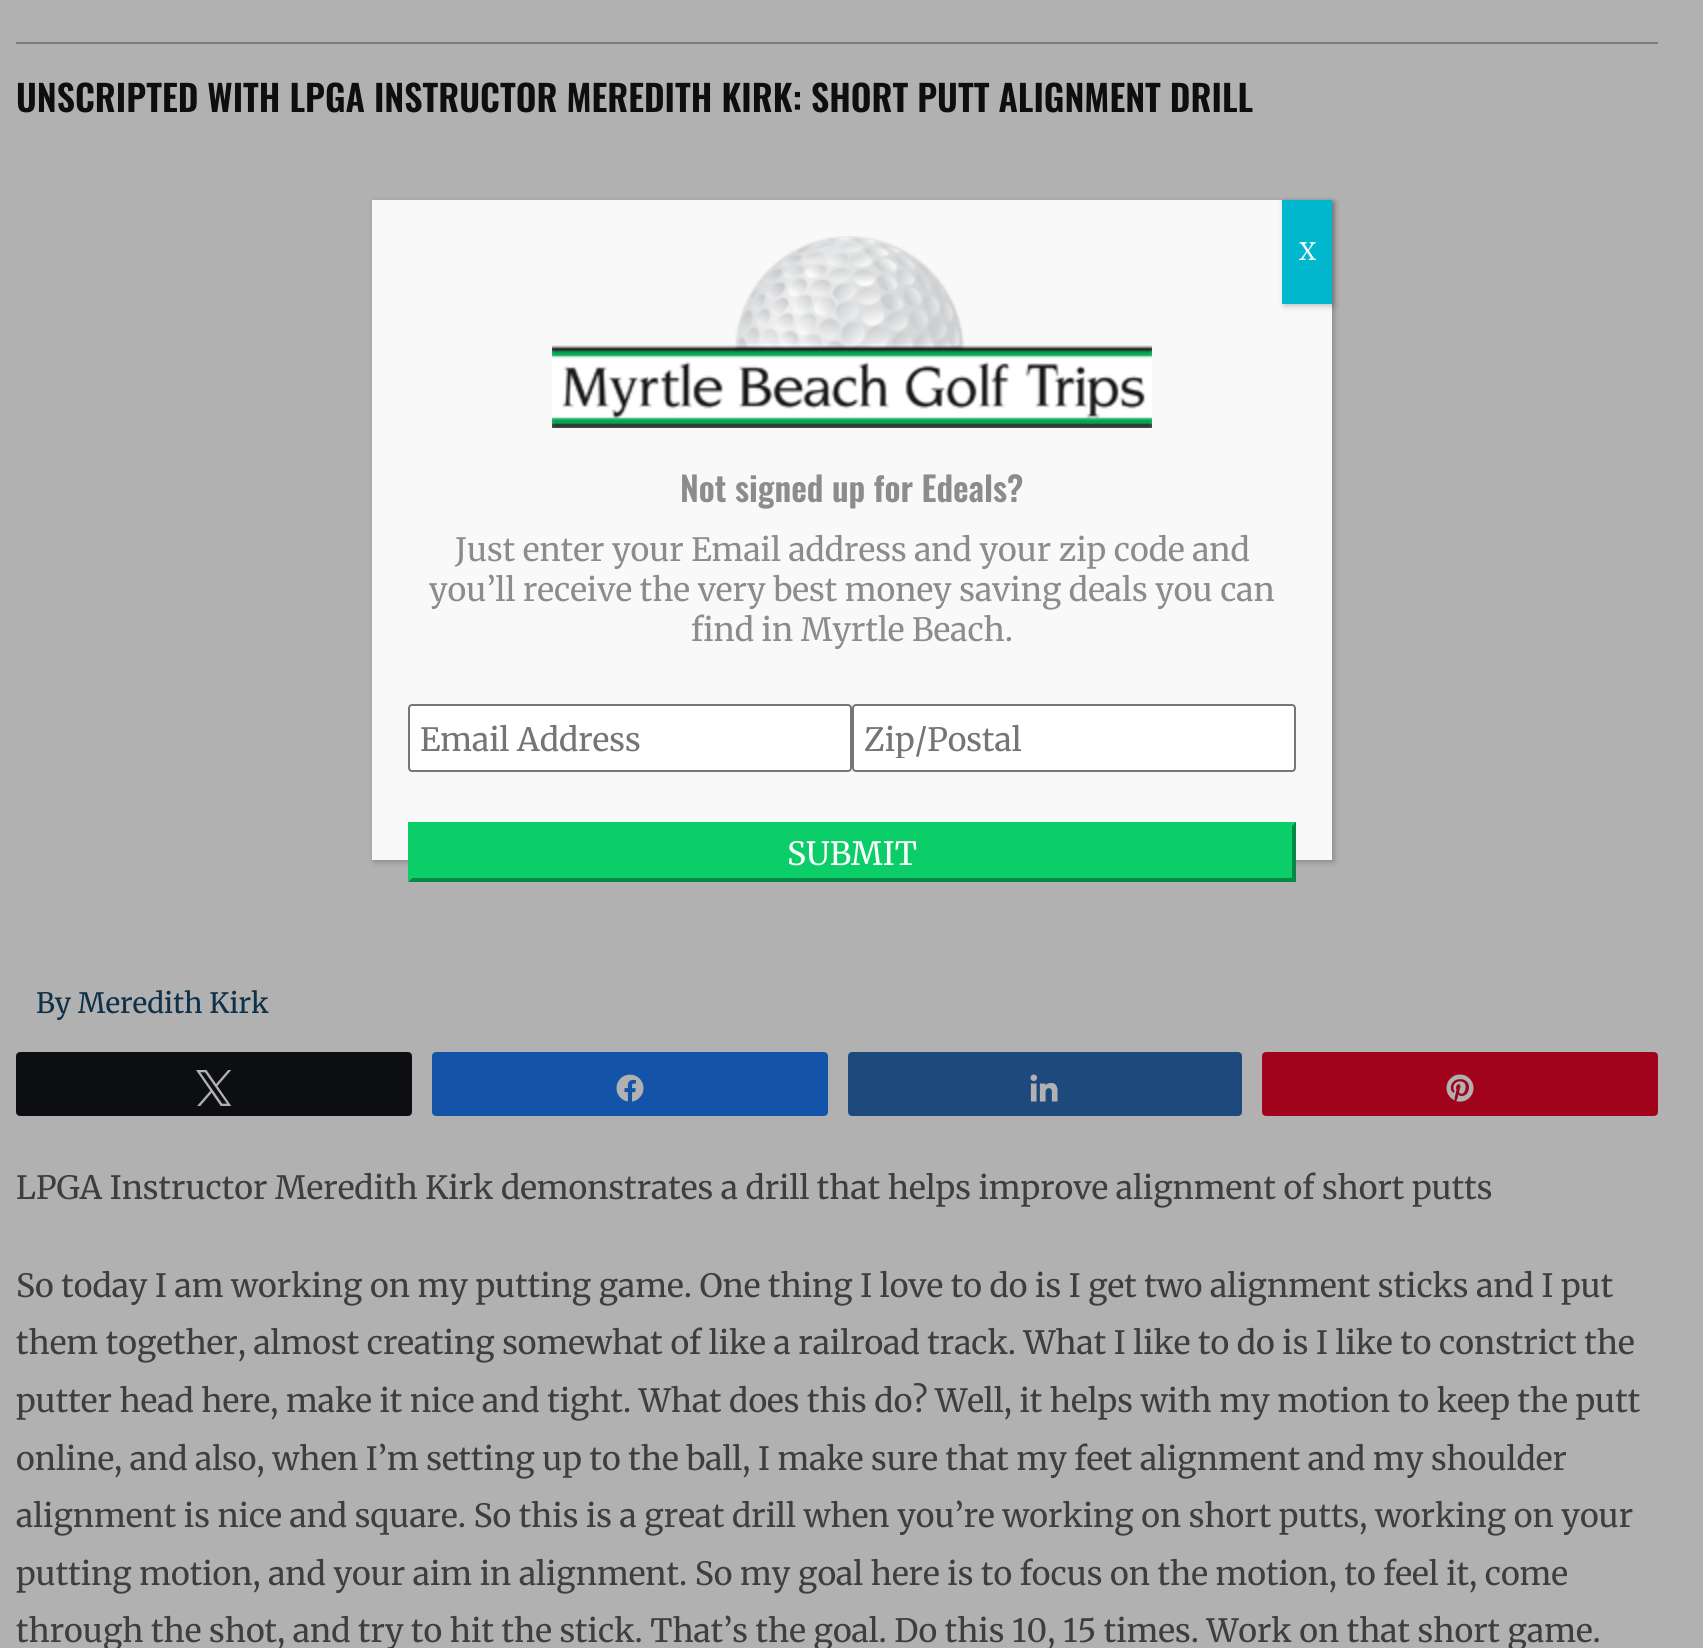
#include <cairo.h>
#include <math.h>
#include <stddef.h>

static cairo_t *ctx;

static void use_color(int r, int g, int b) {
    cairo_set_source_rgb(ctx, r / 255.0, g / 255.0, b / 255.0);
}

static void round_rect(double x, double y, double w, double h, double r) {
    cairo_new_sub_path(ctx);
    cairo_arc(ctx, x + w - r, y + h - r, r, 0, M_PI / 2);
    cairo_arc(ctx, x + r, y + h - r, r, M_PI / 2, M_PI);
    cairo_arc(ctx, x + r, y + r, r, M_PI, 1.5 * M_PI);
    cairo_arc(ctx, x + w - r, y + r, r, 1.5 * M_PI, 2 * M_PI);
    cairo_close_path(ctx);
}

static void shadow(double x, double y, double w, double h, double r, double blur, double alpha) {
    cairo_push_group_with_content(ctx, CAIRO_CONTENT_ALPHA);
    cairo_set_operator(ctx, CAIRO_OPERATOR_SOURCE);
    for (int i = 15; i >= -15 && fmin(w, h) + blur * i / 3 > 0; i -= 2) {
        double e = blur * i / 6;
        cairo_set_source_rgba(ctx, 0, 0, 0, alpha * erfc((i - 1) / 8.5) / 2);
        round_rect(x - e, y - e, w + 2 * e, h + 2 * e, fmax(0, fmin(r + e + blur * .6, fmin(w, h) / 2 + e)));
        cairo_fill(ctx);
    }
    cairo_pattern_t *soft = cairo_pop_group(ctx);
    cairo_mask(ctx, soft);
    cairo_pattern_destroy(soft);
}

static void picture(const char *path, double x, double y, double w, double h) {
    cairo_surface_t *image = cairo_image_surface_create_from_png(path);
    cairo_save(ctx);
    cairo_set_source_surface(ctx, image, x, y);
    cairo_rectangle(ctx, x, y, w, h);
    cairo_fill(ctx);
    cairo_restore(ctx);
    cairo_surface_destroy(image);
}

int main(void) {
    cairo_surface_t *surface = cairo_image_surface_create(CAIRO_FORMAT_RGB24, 1703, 1648);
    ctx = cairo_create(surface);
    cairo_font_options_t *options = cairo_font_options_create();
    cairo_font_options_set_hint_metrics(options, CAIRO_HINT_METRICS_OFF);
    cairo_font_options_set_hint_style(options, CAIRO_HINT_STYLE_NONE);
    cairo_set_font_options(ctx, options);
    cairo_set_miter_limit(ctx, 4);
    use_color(177, 177, 177);
    cairo_paint(ctx);
    use_color(124, 124, 124);
    cairo_rectangle(ctx, 16, 42, 1642, 2);
    cairo_fill(ctx);
    cairo_select_font_face(ctx, "Oswald SemiBold", CAIRO_FONT_SLANT_NORMAL, CAIRO_FONT_WEIGHT_NORMAL);
    cairo_set_font_size(ctx, 36);
    use_color(14, 14, 14);
    cairo_move_to(ctx, 16, 112);
    cairo_show_text(ctx, "UNSCRIPTED WITH LPGA INSTRUCTOR MEREDITH KIRK: SHORT PUTT ALIGNMENT DRILL");
    cairo_select_font_face(ctx, "Merriweather", CAIRO_FONT_SLANT_NORMAL, CAIRO_FONT_WEIGHT_NORMAL);
    cairo_set_font_size(ctx, 28);
    use_color(15, 48, 73);
    cairo_move_to(ctx, 36, 1013);
    cairo_show_text(ctx, "By Meredith Kirk");
    use_color(12, 14, 17);
    round_rect(17, 1053, 394, 62, 3);
    cairo_fill_preserve(ctx);
    cairo_stroke(ctx);
    picture("img1.png", 196, 1070, 36, 36);
    use_color(20, 84, 168);
    round_rect(433, 1053, 394, 62, 3);
    cairo_fill_preserve(ctx);
    cairo_stroke(ctx);
    picture("img2.png", 616, 1074, 28, 28);
    use_color(30, 73, 124);
    round_rect(849, 1053, 392, 62, 3);
    cairo_fill_preserve(ctx);
    cairo_stroke(ctx);
    picture("img3.png", 1030, 1074, 28, 28);
    use_color(160, 3, 27);
    round_rect(1263, 1053, 394, 62, 3);
    cairo_fill_preserve(ctx);
    cairo_stroke(ctx);
    picture("img4.png", 1446, 1074, 28, 28);
    cairo_set_font_size(ctx, 32);
    use_color(62, 62, 62);
    cairo_move_to(ctx, 16, 1199);
    cairo_show_text(ctx, "LPGA Instructor Meredith Kirk demonstrates a drill that helps improve alignment of short putts");
    cairo_move_to(ctx, 16, 1297);
    cairo_show_text(ctx, "So today I am working on my putting game. One thing I love to do is I get two alignment sticks and I put");
    cairo_move_to(ctx, 16, 1354);
    cairo_show_text(ctx, "them together, almost creating somewhat of like a railroad track. What I like to do is I like to constrict the");
    cairo_move_to(ctx, 16, 1412);
    cairo_show_text(ctx, "putter head here, make it nice and tight. What does this do? Well, it helps with my motion to keep the putt");
    cairo_move_to(ctx, 16, 1470);
    cairo_show_text(ctx, "online, and also, when I’m setting up to the ball, I make sure that my feet alignment and my shoulder");
    cairo_move_to(ctx, 16, 1527);
    cairo_show_text(ctx, "alignment is nice and square. So this is a great drill when you’re working on short putts, working on your");
    cairo_move_to(ctx, 16, 1585);
    cairo_show_text(ctx, "putting motion, and your aim in alignment. So my goal here is to focus on the motion, to feel it, come");
    cairo_move_to(ctx, 16, 1642);
    cairo_show_text(ctx, "through the shot, and try to hit the stick. That’s the goal. Do this 10, 15 times. Work on that short game.");
    use_color(2, 2, 2);
    shadow(374, 202, 960, 660, 0, 3, 0.23);
    use_color(249, 249, 249);
    cairo_rectangle(ctx, 372, 200, 960, 660);
    cairo_fill(ctx);
    use_color(2, 2, 2);
    shadow(1284, 202, 50, 104, 0, 3, 0.23);
    use_color(0, 183, 205);
    cairo_rectangle(ctx, 1282, 200, 50, 104);
    cairo_fill(ctx);
    cairo_set_font_size(ctx, 24);
    use_color(255, 255, 255);
    cairo_move_to(ctx, 1299, 260);
    cairo_show_text(ctx, "X");
    picture("img5.png", 552, 236, 600, 192);
    cairo_select_font_face(ctx, "Oswald SemiBold", CAIRO_FONT_SLANT_NORMAL, CAIRO_FONT_WEIGHT_NORMAL);
    cairo_set_font_size(ctx, 34);
    use_color(140, 140, 140);
    cairo_move_to(ctx, 680, 502);
    cairo_show_text(ctx, "Not signed up for Edeals?");
    cairo_select_font_face(ctx, "Merriweather", CAIRO_FONT_SLANT_NORMAL, CAIRO_FONT_WEIGHT_NORMAL);
    cairo_set_font_size(ctx, 32);
    cairo_move_to(ctx, 455, 561);
    cairo_show_text(ctx, "Just enter your Email address and your zip code and");
    cairo_move_to(ctx, 429, 601);
    cairo_show_text(ctx, "you’ll receive the very best money saving deals you can");
    cairo_move_to(ctx, 691, 641);
    cairo_show_text(ctx, "find in Myrtle Beach.");
    use_color(255, 255, 255);
    round_rect(409, 705, 442, 66, 3);
    cairo_fill_preserve(ctx);
    use_color(118, 118, 118);
    cairo_stroke(ctx);
    use_color(117, 117, 117);
    cairo_move_to(ctx, 420, 751);
    cairo_show_text(ctx, "Email Address");
    use_color(255, 255, 255);
    round_rect(853, 705, 442, 66, 3);
    cairo_fill_preserve(ctx);
    use_color(118, 118, 118);
    cairo_stroke(ctx);
    cairo_save(ctx);
    cairo_rectangle(ctx, 864, 718, 420, 40);
    cairo_clip(ctx);
    use_color(117, 117, 117);
    cairo_move_to(ctx, 864, 751);
    cairo_show_text(ctx, "Zip/Postal");
    cairo_restore(ctx);
    use_color(11, 206, 105);
    cairo_rectangle(ctx, 408, 822, 888, 60);
    cairo_fill(ctx);
    use_color(7, 137, 70);
    cairo_new_path(ctx);
    cairo_move_to(ctx, 1296, 822);
    cairo_line_to(ctx, 1296, 882);
    cairo_line_to(ctx, 1292, 878);
    cairo_line_to(ctx, 1292, 826);
    cairo_close_path(ctx);
    cairo_fill(ctx);
    cairo_new_path(ctx);
    cairo_move_to(ctx, 1296, 882);
    cairo_line_to(ctx, 408, 882);
    cairo_line_to(ctx, 412, 878);
    cairo_line_to(ctx, 1292, 878);
    cairo_close_path(ctx);
    cairo_fill(ctx);
    use_color(11, 206, 105);
    cairo_new_path(ctx);
    cairo_move_to(ctx, 408, 882);
    cairo_line_to(ctx, 408, 822);
    cairo_line_to(ctx, 412, 826);
    cairo_line_to(ctx, 412, 878);
    cairo_close_path(ctx);
    cairo_fill(ctx);
    use_color(255, 255, 255);
    cairo_move_to(ctx, 787, 865);
    cairo_show_text(ctx, "SUBMIT");
    cairo_surface_write_to_png(surface, "result.png");
    cairo_font_options_destroy(options);
    cairo_destroy(ctx);
    cairo_surface_destroy(surface);
    return 0;
}
